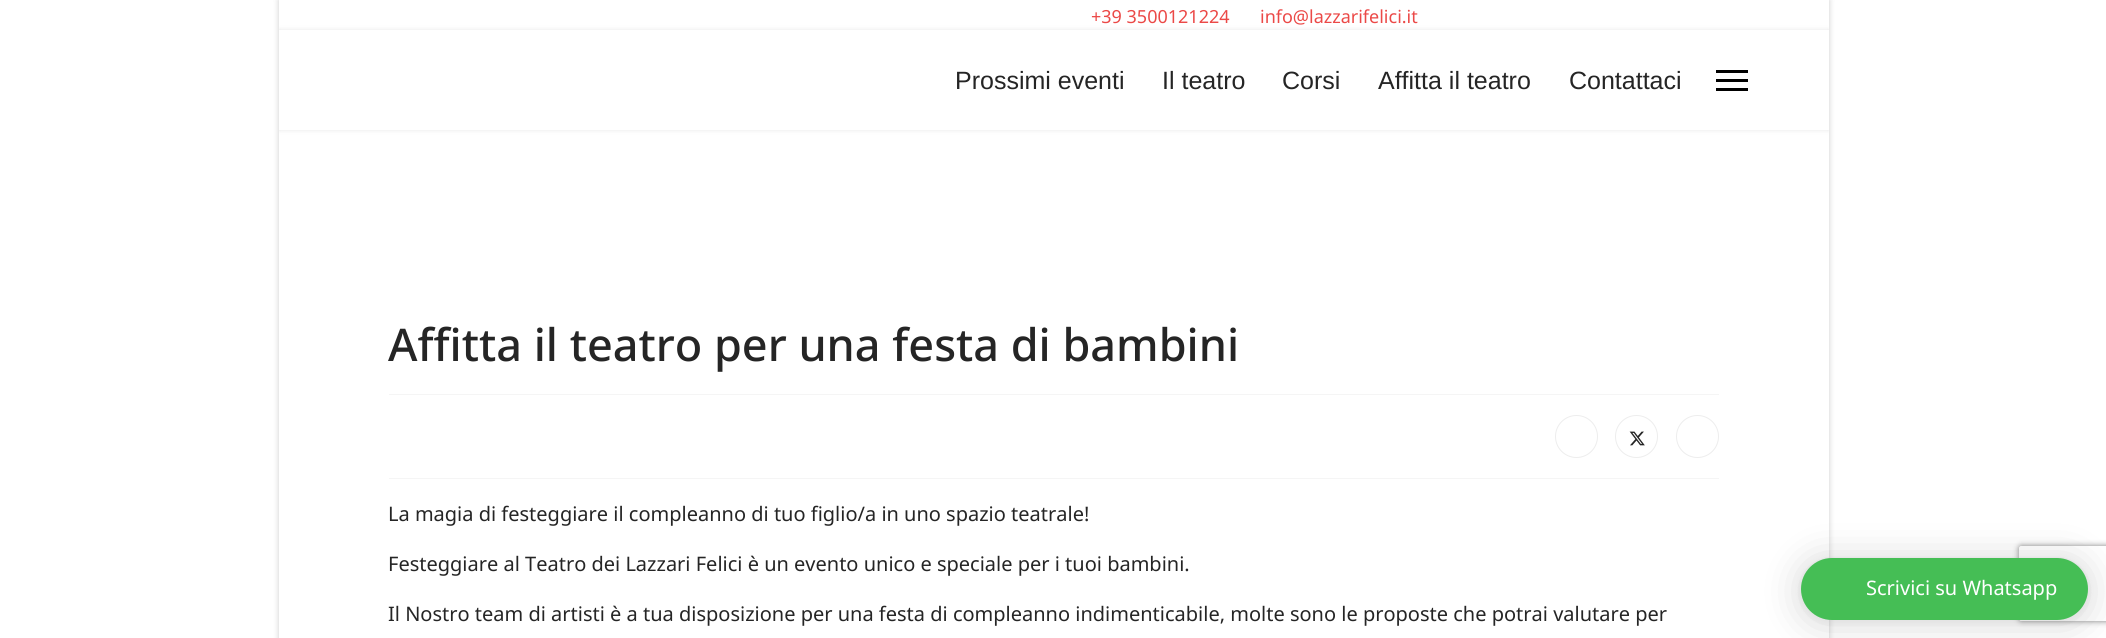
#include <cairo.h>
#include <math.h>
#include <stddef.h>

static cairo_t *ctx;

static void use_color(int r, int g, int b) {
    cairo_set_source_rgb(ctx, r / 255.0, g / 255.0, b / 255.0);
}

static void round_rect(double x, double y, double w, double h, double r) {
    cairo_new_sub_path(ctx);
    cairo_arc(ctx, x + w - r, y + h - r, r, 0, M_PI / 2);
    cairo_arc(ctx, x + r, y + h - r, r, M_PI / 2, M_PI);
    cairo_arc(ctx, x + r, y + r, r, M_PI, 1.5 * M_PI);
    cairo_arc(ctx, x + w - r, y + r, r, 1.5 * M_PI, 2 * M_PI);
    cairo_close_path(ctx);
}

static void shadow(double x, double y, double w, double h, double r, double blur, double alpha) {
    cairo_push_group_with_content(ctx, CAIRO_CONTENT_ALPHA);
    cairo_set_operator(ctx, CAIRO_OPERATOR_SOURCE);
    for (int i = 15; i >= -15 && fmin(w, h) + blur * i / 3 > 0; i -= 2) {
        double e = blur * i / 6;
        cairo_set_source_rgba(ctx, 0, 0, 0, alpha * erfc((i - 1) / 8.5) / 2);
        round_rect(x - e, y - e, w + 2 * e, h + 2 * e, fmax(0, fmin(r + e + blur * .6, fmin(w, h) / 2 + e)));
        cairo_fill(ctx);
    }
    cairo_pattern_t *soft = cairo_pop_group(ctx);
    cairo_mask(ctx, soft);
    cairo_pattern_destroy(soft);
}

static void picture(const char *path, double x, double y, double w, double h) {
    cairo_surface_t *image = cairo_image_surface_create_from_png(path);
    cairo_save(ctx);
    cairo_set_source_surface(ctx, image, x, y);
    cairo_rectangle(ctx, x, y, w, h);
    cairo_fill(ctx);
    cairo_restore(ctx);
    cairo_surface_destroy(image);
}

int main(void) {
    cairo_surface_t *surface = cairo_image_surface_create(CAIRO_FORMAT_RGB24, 2106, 638);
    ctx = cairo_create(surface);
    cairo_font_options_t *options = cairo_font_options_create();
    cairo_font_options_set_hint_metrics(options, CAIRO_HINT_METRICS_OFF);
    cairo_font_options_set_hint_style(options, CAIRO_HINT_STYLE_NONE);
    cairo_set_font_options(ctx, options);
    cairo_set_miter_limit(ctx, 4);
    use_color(255, 255, 255);
    cairo_paint(ctx);
    use_color(0, 0, 0);
    shadow(279, 0, 1550, 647, 0, 3, 0.2);
    use_color(255, 255, 255);
    cairo_rectangle(ctx, 279, 0, 1550, 638);
    cairo_fill(ctx);
    cairo_select_font_face(ctx, "Noto Sans", CAIRO_FONT_SLANT_NORMAL, CAIRO_FONT_WEIGHT_NORMAL);
    cairo_set_font_size(ctx, 18);
    use_color(235, 73, 71);
    cairo_move_to(ctx, 1091, 23);
    cairo_show_text(ctx, "+39 3500121224");
    cairo_move_to(ctx, 1260, 23);
    cairo_show_text(ctx, "info@lazzarifelici.it");
    cairo_save(ctx);
    cairo_rectangle(ctx, 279, 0, 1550, 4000);
    cairo_clip(ctx);
    use_color(0, 0, 0);
    shadow(279, 30, 1550, 100, 0, 2.5, 0.1);
    cairo_restore(ctx);
    use_color(255, 255, 255);
    cairo_rectangle(ctx, 279, 30, 1550, 100);
    cairo_fill(ctx);
    cairo_select_font_face(ctx, "Liberation Sans", CAIRO_FONT_SLANT_NORMAL, CAIRO_FONT_WEIGHT_NORMAL);
    cairo_set_font_size(ctx, 25);
    use_color(37, 37, 37);
    cairo_move_to(ctx, 955, 89);
    cairo_show_text(ctx, "Prossimi eventi");
    cairo_move_to(ctx, 1162, 89);
    cairo_show_text(ctx, "Il teatro");
    cairo_move_to(ctx, 1282, 89);
    cairo_show_text(ctx, "Corsi");
    cairo_move_to(ctx, 1378, 89);
    cairo_show_text(ctx, "Affitta il teatro");
    cairo_move_to(ctx, 1569, 89);
    cairo_show_text(ctx, "Contattaci");
    use_color(0, 0, 0);
    cairo_rectangle(ctx, 1716, 70, 32, 3);
    cairo_fill(ctx);
    cairo_rectangle(ctx, 1716, 79, 32, 3);
    cairo_fill(ctx);
    cairo_rectangle(ctx, 1716, 88, 32, 3);
    cairo_fill(ctx);
    cairo_select_font_face(ctx, "Noto Sans Medium", CAIRO_FONT_SLANT_NORMAL, CAIRO_FONT_WEIGHT_NORMAL);
    cairo_set_font_size(ctx, 45);
    use_color(37, 37, 37);
    cairo_move_to(ctx, 388, 361);
    cairo_show_text(ctx, "Affitta il teatro per una festa di bambini");
    use_color(245, 245, 245);
    cairo_rectangle(ctx, 389, 394, 1330, 1);
    cairo_fill(ctx);
    cairo_rectangle(ctx, 389, 478, 1330, 1);
    cairo_fill(ctx);
    cairo_arc(ctx, 1576.5, 436.5, 21, 0, 2 * M_PI);
    use_color(237, 237, 237);
    cairo_set_line_width(ctx, 1);
    cairo_stroke(ctx);
    cairo_arc(ctx, 1636.5, 436.5, 21, 0, 2 * M_PI);
    cairo_stroke(ctx);
    picture("img1.png", 1629, 431, 16, 15);
    cairo_arc(ctx, 1697.5, 436.5, 21, 0, 2 * M_PI);
    cairo_stroke(ctx);
    cairo_select_font_face(ctx, "Noto Sans", CAIRO_FONT_SLANT_NORMAL, CAIRO_FONT_WEIGHT_NORMAL);
    cairo_set_font_size(ctx, 20);
    use_color(37, 37, 37);
    cairo_move_to(ctx, 388, 521);
    cairo_show_text(ctx, "La magia di festeggiare il compleanno di tuo figlio/a in uno spazio teatrale!");
    cairo_move_to(ctx, 388, 571);
    cairo_show_text(ctx, "Festeggiare al Teatro dei Lazzari Felici è un evento unico e speciale per i tuoi bambini.");
    cairo_move_to(ctx, 388, 621);
    cairo_show_text(ctx, "Il Nostro team di artisti è a tua disposizione per una festa di compleanno indimenticabile, molte sono le proposte che potrai valutare per");
    use_color(0, 0, 0);
    shadow(1801, 560, 287, 63, 31.5, 20, 0.16);
    shadow(1801, 559, 287, 62, 31, 4, 0.06);
    cairo_save(ctx);
    cairo_set_fill_rule(ctx, CAIRO_FILL_RULE_EVEN_ODD);
    cairo_new_path(ctx);
    cairo_move_to(ctx, 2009, 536);
    cairo_line_to(ctx, 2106, 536);
    cairo_line_to(ctx, 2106, 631);
    cairo_line_to(ctx, 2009, 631);
    cairo_close_path(ctx);
    cairo_move_to(ctx, 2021.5, 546);
    cairo_line_to(ctx, 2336.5, 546);
    cairo_curve_to(ctx, 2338, 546, 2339, 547, 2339, 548.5);
    cairo_line_to(ctx, 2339, 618.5);
    cairo_curve_to(ctx, 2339, 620, 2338, 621, 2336.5, 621);
    cairo_line_to(ctx, 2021.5, 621);
    cairo_curve_to(ctx, 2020, 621, 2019, 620, 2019, 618.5);
    cairo_line_to(ctx, 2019, 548.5);
    cairo_curve_to(ctx, 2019, 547, 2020, 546, 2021.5, 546);
    cairo_close_path(ctx);
    cairo_clip(ctx);
    use_color(128, 128, 128);
    shadow(2019, 546, 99, 75, 2.5, 3, 1);
    cairo_restore(ctx);
    use_color(69, 190, 85);
    round_rect(1801, 558, 287, 62, 31);
    cairo_fill(ctx);
    use_color(255, 255, 255);
    cairo_move_to(ctx, 1866, 595);
    cairo_show_text(ctx, "Scrivici su Whatsapp");
    cairo_surface_write_to_png(surface, "result.png");
    cairo_font_options_destroy(options);
    cairo_destroy(ctx);
    cairo_surface_destroy(surface);
    return 0;
}
